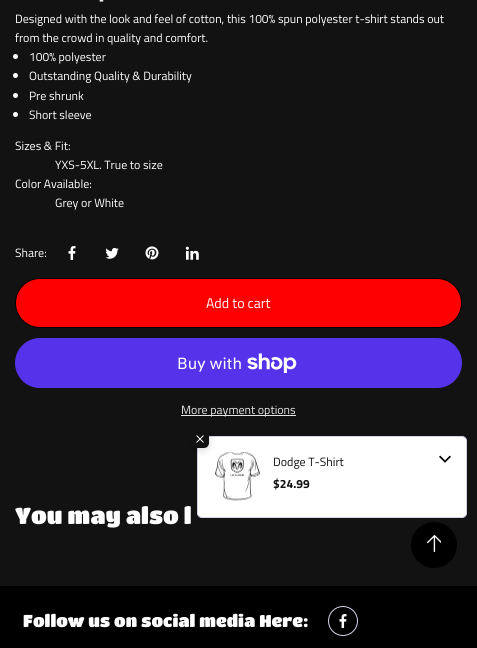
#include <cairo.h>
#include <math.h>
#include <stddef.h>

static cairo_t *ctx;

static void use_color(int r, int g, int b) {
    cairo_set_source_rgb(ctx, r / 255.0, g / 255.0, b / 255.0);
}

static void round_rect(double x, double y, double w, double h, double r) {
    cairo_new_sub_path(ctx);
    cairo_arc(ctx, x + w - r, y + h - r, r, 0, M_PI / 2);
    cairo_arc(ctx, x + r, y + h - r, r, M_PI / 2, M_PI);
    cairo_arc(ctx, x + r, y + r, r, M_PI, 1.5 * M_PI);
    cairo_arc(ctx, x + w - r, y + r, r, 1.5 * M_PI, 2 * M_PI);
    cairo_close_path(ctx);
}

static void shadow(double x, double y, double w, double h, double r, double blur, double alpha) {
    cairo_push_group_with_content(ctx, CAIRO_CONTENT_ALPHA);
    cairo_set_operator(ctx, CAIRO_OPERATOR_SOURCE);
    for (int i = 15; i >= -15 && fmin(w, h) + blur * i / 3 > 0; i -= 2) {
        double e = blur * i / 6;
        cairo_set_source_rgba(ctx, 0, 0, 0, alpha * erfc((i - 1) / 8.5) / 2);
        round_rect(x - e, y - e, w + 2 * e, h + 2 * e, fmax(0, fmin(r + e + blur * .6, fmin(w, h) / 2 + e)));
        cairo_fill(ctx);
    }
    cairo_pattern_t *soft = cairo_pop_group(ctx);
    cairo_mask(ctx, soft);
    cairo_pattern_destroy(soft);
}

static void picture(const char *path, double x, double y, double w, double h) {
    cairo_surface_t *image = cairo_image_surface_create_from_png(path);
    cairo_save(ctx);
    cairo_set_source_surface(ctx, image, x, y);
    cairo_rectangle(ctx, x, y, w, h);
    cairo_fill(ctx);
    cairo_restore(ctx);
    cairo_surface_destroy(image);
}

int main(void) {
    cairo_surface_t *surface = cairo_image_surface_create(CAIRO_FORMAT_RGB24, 477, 648);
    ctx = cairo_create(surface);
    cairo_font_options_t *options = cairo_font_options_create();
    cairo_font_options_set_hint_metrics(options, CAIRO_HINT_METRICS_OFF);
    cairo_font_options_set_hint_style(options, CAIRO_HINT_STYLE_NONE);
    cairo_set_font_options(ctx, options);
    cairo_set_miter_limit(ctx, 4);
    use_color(18, 18, 18);
    cairo_paint(ctx);
    cairo_select_font_face(ctx, "Titillium Web", CAIRO_FONT_SLANT_NORMAL, CAIRO_FONT_WEIGHT_BOLD);
    cairo_set_font_size(ctx, 12);
    use_color(255, 255, 255);
    cairo_move_to(ctx, 99, 4);
    cairo_show_text(ctx, "-");
    cairo_select_font_face(ctx, "Titillium Web", CAIRO_FONT_SLANT_NORMAL, CAIRO_FONT_WEIGHT_NORMAL);
    cairo_move_to(ctx, 15, 23);
    cairo_show_text(ctx, "Designed with the look and feel of cotton, this 100% spun polyester t-shirt stands out");
    cairo_move_to(ctx, 15, 42);
    cairo_show_text(ctx, "from the crowd in quality and comfort.");
    cairo_new_path(ctx);
    cairo_arc(ctx, 15.5, 56.5, 2.5, 0, 2 * M_PI);
    cairo_fill(ctx);
    cairo_move_to(ctx, 29, 61);
    cairo_show_text(ctx, "100% polyester");
    cairo_new_path(ctx);
    cairo_arc(ctx, 15.5, 75.5, 2.5, 0, 2 * M_PI);
    cairo_fill(ctx);
    cairo_move_to(ctx, 29, 80);
    cairo_show_text(ctx, "Outstanding Quality & Durability");
    cairo_new_path(ctx);
    cairo_arc(ctx, 15.5, 95.5, 2.5, 0, 2 * M_PI);
    cairo_fill(ctx);
    cairo_move_to(ctx, 29, 100);
    cairo_show_text(ctx, "Pre shrunk");
    cairo_new_path(ctx);
    cairo_arc(ctx, 15.5, 114.5, 2.5, 0, 2 * M_PI);
    cairo_fill(ctx);
    cairo_move_to(ctx, 29, 119);
    cairo_show_text(ctx, "Short sleeve");
    cairo_move_to(ctx, 15, 150);
    cairo_show_text(ctx, "Sizes & Fit:");
    cairo_move_to(ctx, 55, 169);
    cairo_show_text(ctx, "YXS-5XL. True to size");
    cairo_move_to(ctx, 15, 188);
    cairo_show_text(ctx, "Color Available:");
    cairo_move_to(ctx, 55, 207);
    cairo_show_text(ctx, "Grey or White");
    cairo_move_to(ctx, 15, 257);
    cairo_show_text(ctx, "Share:");
    picture("img1.png", 68, 246, 8, 14);
    picture("img2.png", 105, 247, 14, 12);
    picture("img3.png", 145, 246, 14, 14);
    picture("img4.png", 185, 246, 14, 14);
    use_color(255, 0, 0);
    round_rect(15.5, 278.5, 446, 49, 24.5);
    cairo_fill_preserve(ctx);
    use_color(0, 0, 0);
    cairo_set_line_width(ctx, 1);
    cairo_stroke(ctx);
    cairo_set_font_size(ctx, 14);
    use_color(255, 255, 255);
    cairo_move_to(ctx, 206, 308);
    cairo_show_text(ctx, "Add to cart");
    use_color(84, 51, 235);
    round_rect(15, 338, 447, 50, 25);
    cairo_fill(ctx);
    cairo_select_font_face(ctx, "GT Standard", CAIRO_FONT_SLANT_NORMAL, CAIRO_FONT_WEIGHT_NORMAL);
    cairo_set_font_size(ctx, 16);
    use_color(255, 255, 255);
    cairo_move_to(ctx, 177, 369);
    cairo_show_text(ctx, "Buy with");
    picture("img5.png", 247, 353, 50, 20);
    use_color(229, 229, 229);
    cairo_rectangle(ctx, 181, 415, 115, 1);
    cairo_fill(ctx);
    cairo_select_font_face(ctx, "Titillium Web", CAIRO_FONT_SLANT_NORMAL, CAIRO_FONT_WEIGHT_NORMAL);
    cairo_set_font_size(ctx, 12);
    cairo_move_to(ctx, 181, 414);
    cairo_show_text(ctx, "More payment options");
    use_color(255, 255, 255);
    round_rect(197.5, 436.5, 269, 81, 4.5);
    cairo_fill_preserve(ctx);
    use_color(212, 212, 231);
    cairo_stroke(ctx);
    use_color(0, 0, 0);
    shadow(191, 432, 18, 18, 5, 4, 0.15);
    use_color(18, 18, 18);
    round_rect(191, 430, 18, 18, 5);
    cairo_fill(ctx);
    picture("img6.png", 196, 435, 8, 8);
    picture("img7.png", 215, 452, 45, 49);
    cairo_move_to(ctx, 273, 466);
    cairo_show_text(ctx, "Dodge T-Shirt");
    cairo_select_font_face(ctx, "Titillium Web", CAIRO_FONT_SLANT_NORMAL, CAIRO_FONT_WEIGHT_BOLD);
    cairo_move_to(ctx, 273, 488);
    cairo_show_text(ctx, "$24.99");
    picture("img8.png", 439, 455, 12, 8);
    cairo_select_font_face(ctx, "Titan One", CAIRO_FONT_SLANT_NORMAL, CAIRO_FONT_WEIGHT_NORMAL);
    cairo_set_font_size(ctx, 23);
    use_color(255, 255, 255);
    cairo_move_to(ctx, 15, 524);
    cairo_show_text(ctx, "You may also l");
    use_color(0, 0, 0);
    cairo_new_path(ctx);
    cairo_arc(ctx, 434, 545, 23, 0, 2 * M_PI);
    cairo_fill(ctx);
    picture("img9.png", 427, 535, 14, 17);
    cairo_rectangle(ctx, 0, 586, 477, 62);
    cairo_fill(ctx);
    cairo_set_font_size(ctx, 17);
    use_color(255, 255, 255);
    cairo_move_to(ctx, 23, 627);
    cairo_show_text(ctx, "Follow us on social media Here:");
    cairo_new_path(ctx);
    cairo_arc(ctx, 343, 621, 14.5, 0, 2 * M_PI);
    use_color(212, 212, 231);
    cairo_stroke(ctx);
    picture("img10.png", 339, 614, 8, 14);
    cairo_surface_write_to_png(surface, "result.png");
    cairo_font_options_destroy(options);
    cairo_destroy(ctx);
    cairo_surface_destroy(surface);
    return 0;
}
